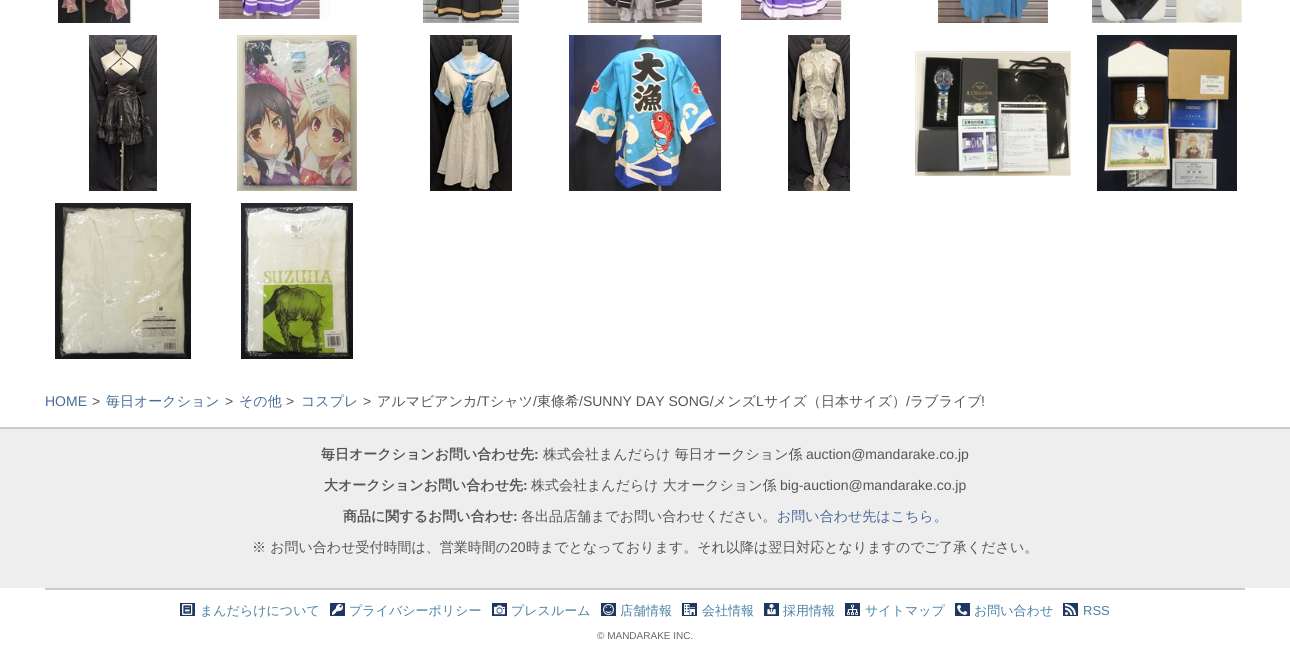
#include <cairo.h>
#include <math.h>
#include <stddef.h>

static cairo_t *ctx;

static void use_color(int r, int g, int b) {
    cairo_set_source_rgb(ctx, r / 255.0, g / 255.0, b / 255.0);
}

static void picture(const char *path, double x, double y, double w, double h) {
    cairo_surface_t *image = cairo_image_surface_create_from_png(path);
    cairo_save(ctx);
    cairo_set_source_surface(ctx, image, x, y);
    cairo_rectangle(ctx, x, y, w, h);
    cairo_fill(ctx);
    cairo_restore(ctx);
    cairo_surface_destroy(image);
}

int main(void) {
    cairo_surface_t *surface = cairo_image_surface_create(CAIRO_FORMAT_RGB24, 1290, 661);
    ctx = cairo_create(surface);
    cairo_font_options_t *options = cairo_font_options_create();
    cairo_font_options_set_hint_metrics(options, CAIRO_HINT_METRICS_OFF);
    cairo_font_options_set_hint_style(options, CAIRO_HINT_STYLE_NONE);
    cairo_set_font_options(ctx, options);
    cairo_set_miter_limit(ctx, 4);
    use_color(255, 255, 255);
    cairo_paint(ctx);
    picture("img1.png", 58, 0, 76, 23);
    picture("img2.png", 219, 0, 112, 19);
    picture("img3.png", 423, 0, 96, 23);
    picture("img4.png", 588, 0, 114, 23);
    picture("img5.png", 741, 0, 106, 20);
    picture("img6.png", 938, 0, 110, 23);
    picture("img7.png", 1092, 0, 150, 23);
    picture("img8.png", 89, 35, 68, 156);
    picture("img9.png", 237, 35, 120, 156);
    picture("img10.png", 430, 35, 82, 156);
    picture("img11.png", 569, 35, 152, 156);
    picture("img12.png", 788, 35, 62, 156);
    picture("img13.png", 915, 51, 156, 125);
    picture("img14.png", 1097, 35, 140, 156);
    picture("img15.png", 55, 203, 136, 156);
    picture("img16.png", 241, 203, 112, 156);
    cairo_select_font_face(ctx, "Liberation Sans", CAIRO_FONT_SLANT_NORMAL, CAIRO_FONT_WEIGHT_NORMAL);
    cairo_set_font_size(ctx, 14);
    use_color(72, 107, 151);
    cairo_move_to(ctx, 45, 406);
    cairo_show_text(ctx, "HOME");
    use_color(85, 85, 85);
    cairo_move_to(ctx, 92, 406);
    cairo_show_text(ctx, ">");
    cairo_select_font_face(ctx, "WenQuanYi Zen Hei Medium", CAIRO_FONT_SLANT_NORMAL, CAIRO_FONT_WEIGHT_NORMAL);
    use_color(72, 107, 151);
    cairo_move_to(ctx, 106, 406);
    cairo_show_text(ctx, "毎日オークション");
    cairo_select_font_face(ctx, "Liberation Sans", CAIRO_FONT_SLANT_NORMAL, CAIRO_FONT_WEIGHT_NORMAL);
    use_color(85, 85, 85);
    cairo_move_to(ctx, 225, 406);
    cairo_show_text(ctx, ">");
    cairo_select_font_face(ctx, "WenQuanYi Zen Hei Medium", CAIRO_FONT_SLANT_NORMAL, CAIRO_FONT_WEIGHT_NORMAL);
    use_color(72, 107, 151);
    cairo_move_to(ctx, 239, 406);
    cairo_show_text(ctx, "その他");
    cairo_select_font_face(ctx, "Liberation Sans", CAIRO_FONT_SLANT_NORMAL, CAIRO_FONT_WEIGHT_NORMAL);
    use_color(85, 85, 85);
    cairo_move_to(ctx, 286, 406);
    cairo_show_text(ctx, ">");
    cairo_select_font_face(ctx, "WenQuanYi Zen Hei Medium", CAIRO_FONT_SLANT_NORMAL, CAIRO_FONT_WEIGHT_NORMAL);
    use_color(72, 107, 151);
    cairo_move_to(ctx, 301, 406);
    cairo_show_text(ctx, "コスプレ");
    cairo_select_font_face(ctx, "Liberation Sans", CAIRO_FONT_SLANT_NORMAL, CAIRO_FONT_WEIGHT_NORMAL);
    use_color(85, 85, 85);
    cairo_move_to(ctx, 363, 406);
    cairo_show_text(ctx, ">");
    cairo_select_font_face(ctx, "WenQuanYi Zen Hei Medium", CAIRO_FONT_SLANT_NORMAL, CAIRO_FONT_WEIGHT_NORMAL);
    cairo_move_to(ctx, 377, 406);
    cairo_show_text(ctx, "アルマビアンカ");
    cairo_select_font_face(ctx, "Liberation Sans", CAIRO_FONT_SLANT_NORMAL, CAIRO_FONT_WEIGHT_NORMAL);
    cairo_move_to(ctx, 477, 406);
    cairo_show_text(ctx, "/T");
    cairo_select_font_face(ctx, "WenQuanYi Zen Hei Medium", CAIRO_FONT_SLANT_NORMAL, CAIRO_FONT_WEIGHT_NORMAL);
    cairo_move_to(ctx, 490, 406);
    cairo_show_text(ctx, "シャツ");
    cairo_select_font_face(ctx, "Liberation Sans", CAIRO_FONT_SLANT_NORMAL, CAIRO_FONT_WEIGHT_NORMAL);
    cairo_move_to(ctx, 533, 406);
    cairo_show_text(ctx, "/");
    cairo_select_font_face(ctx, "WenQuanYi Zen Hei Medium", CAIRO_FONT_SLANT_NORMAL, CAIRO_FONT_WEIGHT_NORMAL);
    cairo_move_to(ctx, 537, 406);
    cairo_show_text(ctx, "東條希");
    cairo_select_font_face(ctx, "Liberation Sans", CAIRO_FONT_SLANT_NORMAL, CAIRO_FONT_WEIGHT_NORMAL);
    cairo_move_to(ctx, 579, 406);
    cairo_show_text(ctx, "/SUNNY DAY SONG/");
    cairo_select_font_face(ctx, "WenQuanYi Zen Hei Medium", CAIRO_FONT_SLANT_NORMAL, CAIRO_FONT_WEIGHT_NORMAL);
    cairo_move_to(ctx, 713, 406);
    cairo_show_text(ctx, "メンズ");
    cairo_select_font_face(ctx, "Liberation Sans", CAIRO_FONT_SLANT_NORMAL, CAIRO_FONT_WEIGHT_NORMAL);
    cairo_move_to(ctx, 756, 406);
    cairo_show_text(ctx, "L");
    cairo_select_font_face(ctx, "WenQuanYi Zen Hei Medium", CAIRO_FONT_SLANT_NORMAL, CAIRO_FONT_WEIGHT_NORMAL);
    cairo_move_to(ctx, 764, 406);
    cairo_show_text(ctx, "サイズ（日本サイズ）");
    cairo_select_font_face(ctx, "Liberation Sans", CAIRO_FONT_SLANT_NORMAL, CAIRO_FONT_WEIGHT_NORMAL);
    cairo_move_to(ctx, 906, 406);
    cairo_show_text(ctx, "/");
    cairo_select_font_face(ctx, "WenQuanYi Zen Hei Medium", CAIRO_FONT_SLANT_NORMAL, CAIRO_FONT_WEIGHT_NORMAL);
    cairo_move_to(ctx, 910, 406);
    cairo_show_text(ctx, "ラブライブ");
    cairo_select_font_face(ctx, "Liberation Sans", CAIRO_FONT_SLANT_NORMAL, CAIRO_FONT_WEIGHT_NORMAL);
    cairo_move_to(ctx, 981, 406);
    cairo_show_text(ctx, "!");
    use_color(238, 238, 238);
    cairo_rectangle(ctx, 0, 429, 1290, 159);
    cairo_fill(ctx);
    use_color(204, 204, 204);
    cairo_rectangle(ctx, 0, 427, 1290, 2);
    cairo_fill(ctx);
    cairo_select_font_face(ctx, "WenQuanYi Zen Hei", CAIRO_FONT_SLANT_NORMAL, CAIRO_FONT_WEIGHT_BOLD);
    use_color(85, 85, 85);
    cairo_move_to(ctx, 321, 459);
    cairo_show_text(ctx, "毎日オークションお問い合わせ先");
    cairo_select_font_face(ctx, "Liberation Sans", CAIRO_FONT_SLANT_NORMAL, CAIRO_FONT_WEIGHT_BOLD);
    cairo_move_to(ctx, 534, 459);
    cairo_show_text(ctx, ":");
    cairo_select_font_face(ctx, "WenQuanYi Zen Hei Medium", CAIRO_FONT_SLANT_NORMAL, CAIRO_FONT_WEIGHT_NORMAL);
    cairo_move_to(ctx, 543, 459);
    cairo_show_text(ctx, "株式会社まんだらけ 毎日オークション係");
    cairo_select_font_face(ctx, "Liberation Sans", CAIRO_FONT_SLANT_NORMAL, CAIRO_FONT_WEIGHT_NORMAL);
    cairo_move_to(ctx, 806, 459);
    cairo_show_text(ctx, "auction@mandarake.co.jp");
    cairo_select_font_face(ctx, "WenQuanYi Zen Hei", CAIRO_FONT_SLANT_NORMAL, CAIRO_FONT_WEIGHT_BOLD);
    cairo_move_to(ctx, 324, 490);
    cairo_show_text(ctx, "大オークションお問い合わせ先");
    cairo_select_font_face(ctx, "Liberation Sans", CAIRO_FONT_SLANT_NORMAL, CAIRO_FONT_WEIGHT_BOLD);
    cairo_move_to(ctx, 523, 490);
    cairo_show_text(ctx, ":");
    cairo_select_font_face(ctx, "WenQuanYi Zen Hei Medium", CAIRO_FONT_SLANT_NORMAL, CAIRO_FONT_WEIGHT_NORMAL);
    cairo_move_to(ctx, 531, 490);
    cairo_show_text(ctx, "株式会社まんだらけ 大オークション係");
    cairo_select_font_face(ctx, "Liberation Sans", CAIRO_FONT_SLANT_NORMAL, CAIRO_FONT_WEIGHT_NORMAL);
    cairo_move_to(ctx, 780, 490);
    cairo_show_text(ctx, "big-auction@mandarake.co.jp");
    cairo_select_font_face(ctx, "WenQuanYi Zen Hei", CAIRO_FONT_SLANT_NORMAL, CAIRO_FONT_WEIGHT_BOLD);
    cairo_move_to(ctx, 343, 521);
    cairo_show_text(ctx, "商品に関するお問い合わせ");
    cairo_select_font_face(ctx, "Liberation Sans", CAIRO_FONT_SLANT_NORMAL, CAIRO_FONT_WEIGHT_BOLD);
    cairo_move_to(ctx, 513, 521);
    cairo_show_text(ctx, ":");
    cairo_select_font_face(ctx, "WenQuanYi Zen Hei Medium", CAIRO_FONT_SLANT_NORMAL, CAIRO_FONT_WEIGHT_NORMAL);
    cairo_move_to(ctx, 521, 521);
    cairo_show_text(ctx, "各出品店舗までお問い合わせください。");
    use_color(72, 107, 151);
    cairo_move_to(ctx, 777, 521);
    cairo_show_text(ctx, "お問い合わせ先はこちら。");
    use_color(85, 85, 85);
    cairo_move_to(ctx, 252, 552);
    cairo_show_text(ctx, "※ お問い合わせ受付時間は、営業時間の");
    cairo_select_font_face(ctx, "Liberation Sans", CAIRO_FONT_SLANT_NORMAL, CAIRO_FONT_WEIGHT_NORMAL);
    cairo_move_to(ctx, 510, 552);
    cairo_show_text(ctx, "20");
    cairo_select_font_face(ctx, "WenQuanYi Zen Hei Medium", CAIRO_FONT_SLANT_NORMAL, CAIRO_FONT_WEIGHT_NORMAL);
    cairo_move_to(ctx, 526, 552);
    cairo_show_text(ctx, "時までとなっております。それ以降は翌日対応となりますのでご了承ください。");
    use_color(204, 204, 204);
    cairo_rectangle(ctx, 45, 588, 1200, 2);
    cairo_fill(ctx);
    use_color(29, 55, 96);
    cairo_rectangle(ctx, 180, 603, 15, 13);
    cairo_fill(ctx);
    picture("img17.png", 182, 604, 11, 11);
    cairo_set_font_size(ctx, 13);
    use_color(72, 129, 164);
    cairo_move_to(ctx, 200, 615);
    cairo_show_text(ctx, "まんだらけについて");
    use_color(29, 55, 96);
    cairo_rectangle(ctx, 330, 603, 15, 13);
    cairo_fill(ctx);
    picture("img18.png", 332, 604, 11, 11);
    use_color(72, 129, 164);
    cairo_move_to(ctx, 349, 615);
    cairo_show_text(ctx, "プライバシーポリシー");
    use_color(29, 55, 96);
    cairo_rectangle(ctx, 492, 603, 15, 13);
    cairo_fill(ctx);
    picture("img19.png", 494, 605, 11, 10);
    use_color(72, 129, 164);
    cairo_move_to(ctx, 511, 615);
    cairo_show_text(ctx, "プレスルーム");
    use_color(29, 55, 96);
    cairo_rectangle(ctx, 601, 603, 15, 13);
    cairo_fill(ctx);
    picture("img20.png", 603, 604, 11, 11);
    use_color(72, 129, 164);
    cairo_move_to(ctx, 620, 615);
    cairo_show_text(ctx, "店舗情報");
    use_color(29, 55, 96);
    cairo_rectangle(ctx, 682, 603, 15, 13);
    cairo_fill(ctx);
    picture("img21.png", 684, 604, 11, 11);
    use_color(72, 129, 164);
    cairo_move_to(ctx, 702, 615);
    cairo_show_text(ctx, "会社情報");
    use_color(29, 55, 96);
    cairo_rectangle(ctx, 764, 603, 15, 13);
    cairo_fill(ctx);
    picture("img22.png", 767, 604, 9, 11);
    use_color(72, 129, 164);
    cairo_move_to(ctx, 783, 615);
    cairo_show_text(ctx, "採用情報");
    use_color(29, 55, 96);
    cairo_rectangle(ctx, 845, 603, 15, 13);
    cairo_fill(ctx);
    picture("img23.png", 847, 604, 11, 11);
    use_color(72, 129, 164);
    cairo_move_to(ctx, 865, 615);
    cairo_show_text(ctx, "サイトマップ");
    use_color(29, 55, 96);
    cairo_rectangle(ctx, 955, 603, 15, 13);
    cairo_fill(ctx);
    picture("img24.png", 957, 604, 11, 11);
    use_color(72, 129, 164);
    cairo_move_to(ctx, 974, 615);
    cairo_show_text(ctx, "お問い合わせ");
    use_color(29, 55, 96);
    cairo_rectangle(ctx, 1063, 603, 15, 13);
    cairo_fill(ctx);
    picture("img25.png", 1065, 604, 11, 11);
    cairo_select_font_face(ctx, "Liberation Sans", CAIRO_FONT_SLANT_NORMAL, CAIRO_FONT_WEIGHT_NORMAL);
    use_color(72, 129, 164);
    cairo_move_to(ctx, 1083, 615);
    cairo_show_text(ctx, "RSS");
    cairo_set_font_size(ctx, 10);
    use_color(102, 102, 102);
    cairo_move_to(ctx, 597, 639);
    cairo_show_text(ctx, "© MANDARAKE INC.");
    cairo_surface_write_to_png(surface, "result.png");
    cairo_font_options_destroy(options);
    cairo_destroy(ctx);
    cairo_surface_destroy(surface);
    return 0;
}
